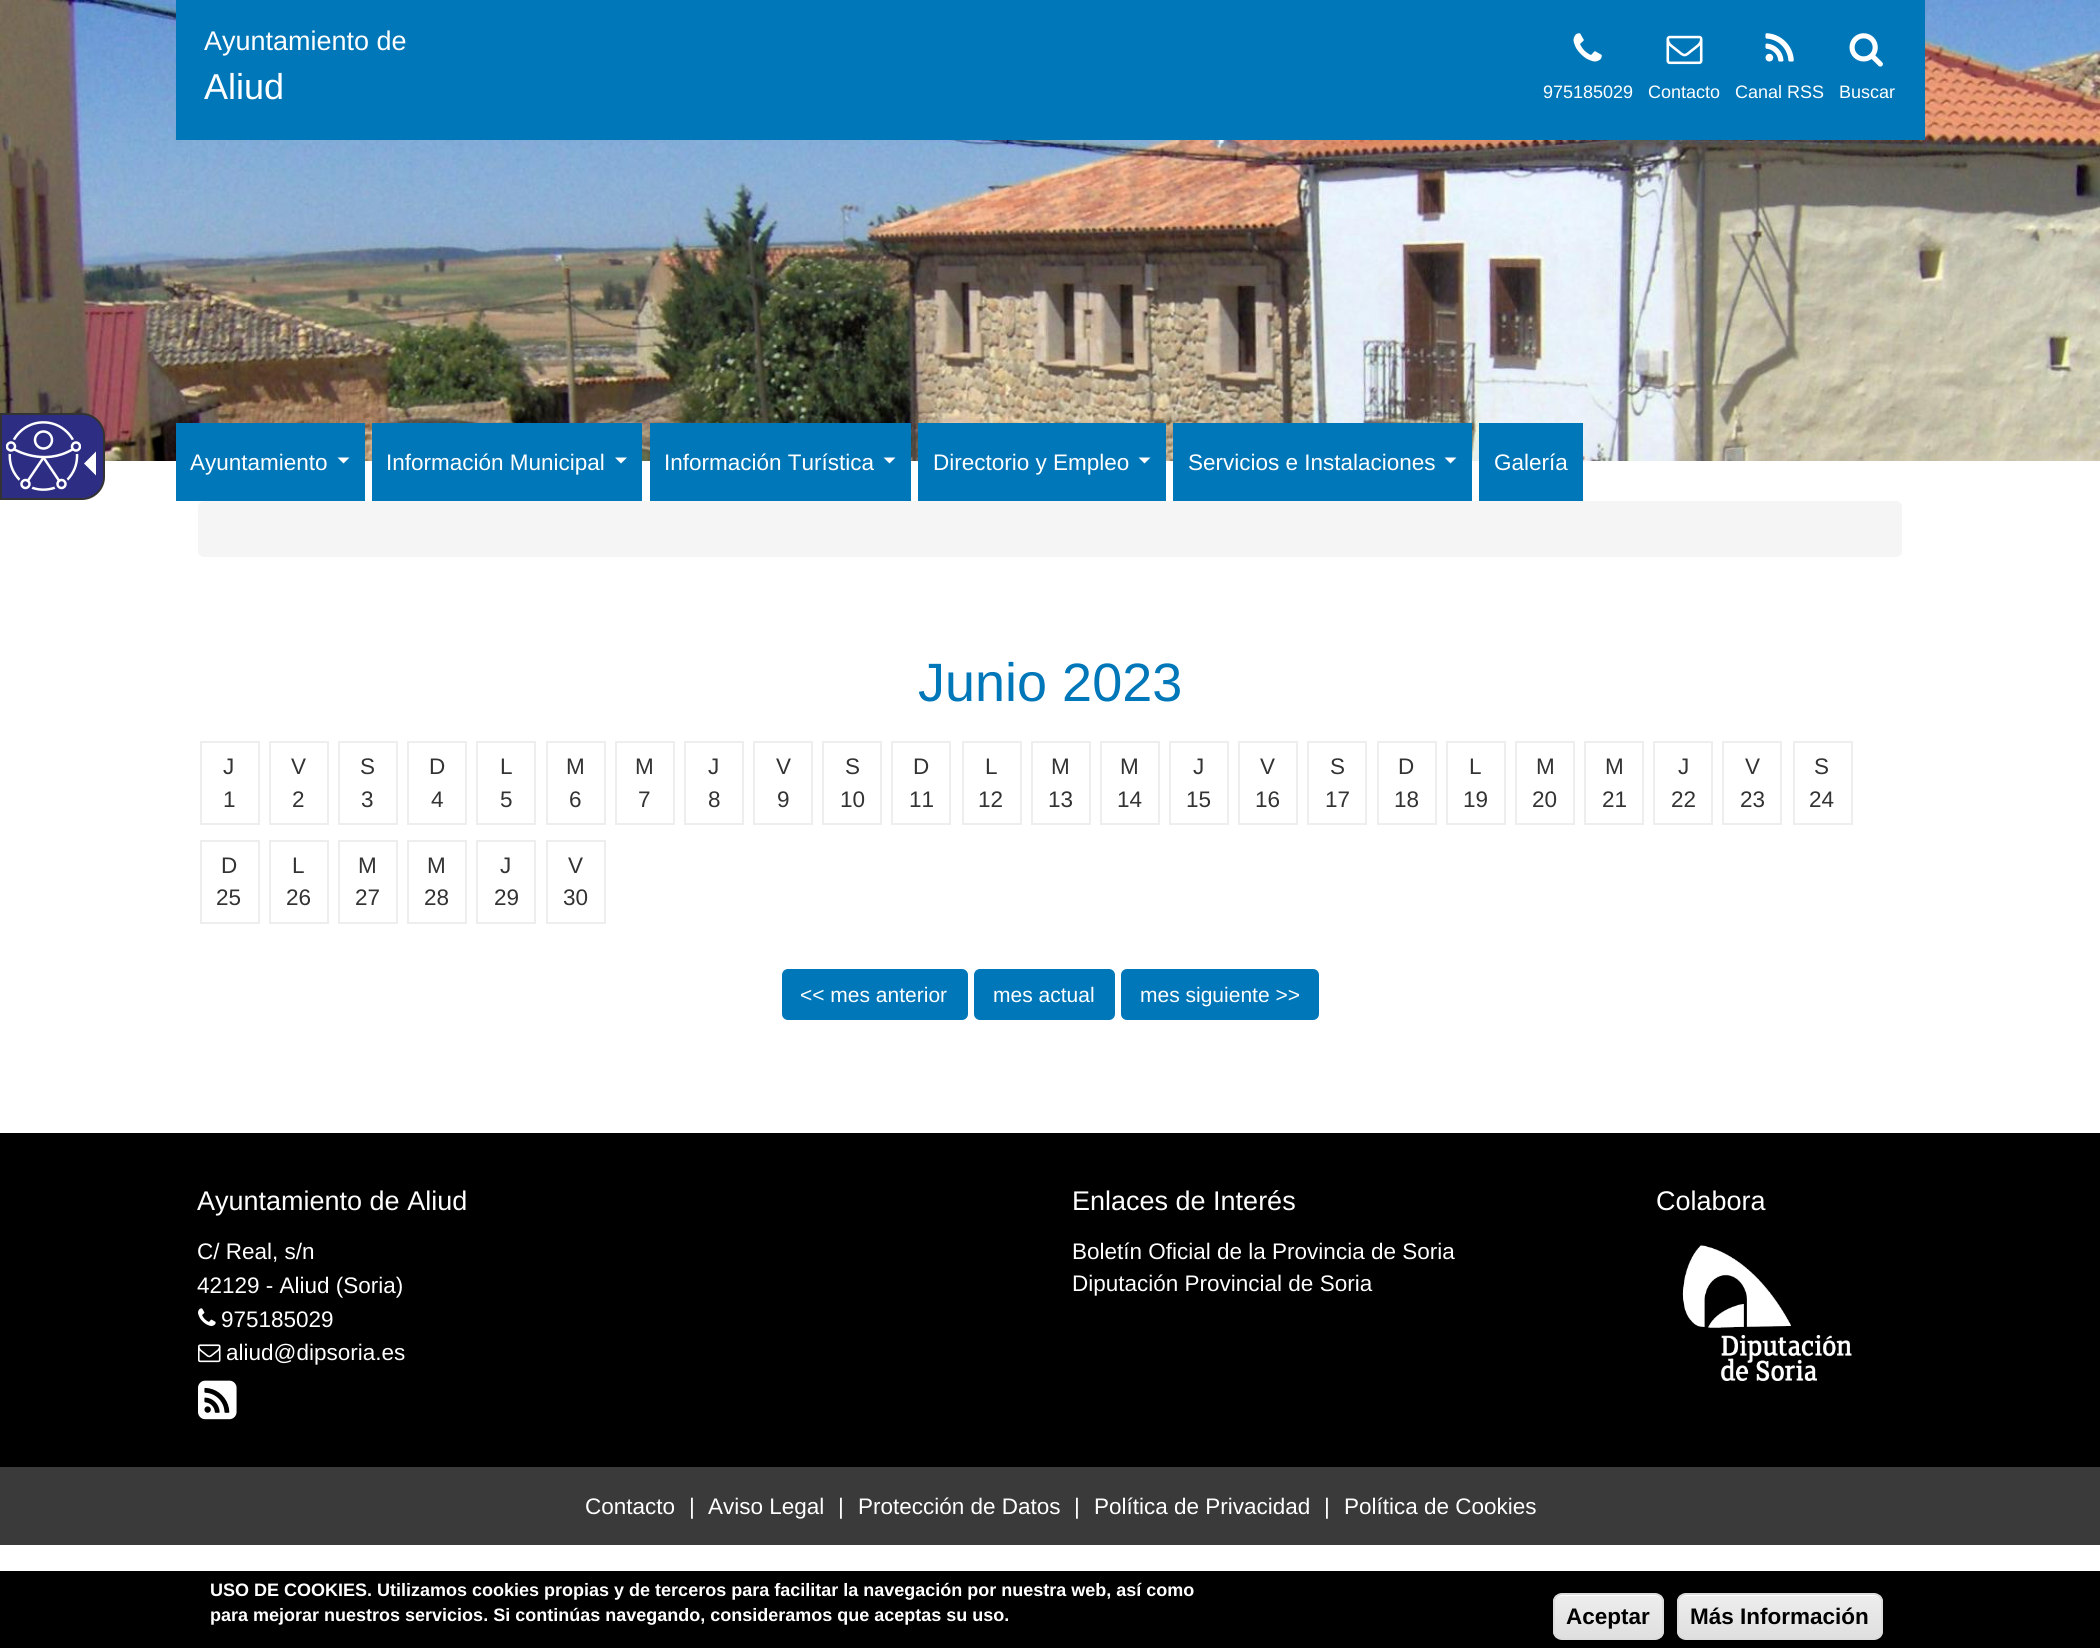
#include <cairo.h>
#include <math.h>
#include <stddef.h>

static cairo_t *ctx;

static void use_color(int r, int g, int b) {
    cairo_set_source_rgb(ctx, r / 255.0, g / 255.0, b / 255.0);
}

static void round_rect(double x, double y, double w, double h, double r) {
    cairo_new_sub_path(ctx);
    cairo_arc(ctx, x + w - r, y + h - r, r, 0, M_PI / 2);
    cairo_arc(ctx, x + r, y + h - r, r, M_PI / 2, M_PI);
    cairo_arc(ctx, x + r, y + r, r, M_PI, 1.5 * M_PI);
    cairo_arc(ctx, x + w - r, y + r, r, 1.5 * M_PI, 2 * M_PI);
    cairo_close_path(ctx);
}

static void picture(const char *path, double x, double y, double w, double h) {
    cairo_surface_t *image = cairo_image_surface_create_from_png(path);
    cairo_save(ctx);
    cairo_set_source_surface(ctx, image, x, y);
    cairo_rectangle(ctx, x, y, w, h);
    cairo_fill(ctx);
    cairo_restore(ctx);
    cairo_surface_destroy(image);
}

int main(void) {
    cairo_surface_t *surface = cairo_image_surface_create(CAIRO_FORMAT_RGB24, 2100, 1648);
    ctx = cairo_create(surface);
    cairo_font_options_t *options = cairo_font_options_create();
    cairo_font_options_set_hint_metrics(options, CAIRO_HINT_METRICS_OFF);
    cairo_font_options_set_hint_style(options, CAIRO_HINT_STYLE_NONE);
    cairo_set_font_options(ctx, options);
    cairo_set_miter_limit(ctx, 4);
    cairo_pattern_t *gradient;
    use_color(255, 255, 255);
    cairo_paint(ctx);
    picture("img2.png", 0, 0, 2100, 461);
    use_color(45, 46, 131);
    cairo_new_path(ctx);
    cairo_move_to(ctx, 1, 414);
    cairo_line_to(ctx, 82, 414);
    cairo_curve_to(ctx, 94, 414, 104, 424, 104, 436);
    cairo_line_to(ctx, 104, 477);
    cairo_curve_to(ctx, 104, 489, 94, 499, 82, 499);
    cairo_line_to(ctx, 1, 499);
    cairo_close_path(ctx);
    cairo_fill_preserve(ctx);
    use_color(51, 51, 51);
    cairo_stroke(ctx);
    picture("img1.png", 6, 421, 75, 70);
    use_color(255, 255, 255);
    cairo_new_path(ctx);
    cairo_move_to(ctx, 96, 451.5);
    cairo_line_to(ctx, 96, 475.5);
    cairo_line_to(ctx, 84, 463.5);
    cairo_close_path(ctx);
    cairo_fill(ctx);
    use_color(0, 119, 185);
    cairo_rectangle(ctx, 176, 0, 1749, 140);
    cairo_fill(ctx);
    cairo_select_font_face(ctx, "Liberation Sans", CAIRO_FONT_SLANT_NORMAL, CAIRO_FONT_WEIGHT_NORMAL);
    cairo_set_font_size(ctx, 27);
    use_color(255, 255, 255);
    cairo_move_to(ctx, 204, 50);
    cairo_show_text(ctx, "Ayuntamiento de");
    cairo_set_font_size(ctx, 36);
    cairo_move_to(ctx, 204, 99);
    cairo_show_text(ctx, "Aliud");
    picture("img3.png", 1573, 33, 29, 29);
    cairo_set_font_size(ctx, 18);
    cairo_move_to(ctx, 1543, 98);
    cairo_show_text(ctx, "975185029");
    picture("img4.png", 1666, 35, 37, 30);
    cairo_move_to(ctx, 1648, 98);
    cairo_show_text(ctx, "Contacto");
    picture("img5.png", 1765, 33, 29, 29);
    cairo_move_to(ctx, 1735, 98);
    cairo_show_text(ctx, "Canal RSS");
    picture("img6.png", 1849, 33, 34, 34);
    cairo_move_to(ctx, 1839, 98);
    cairo_show_text(ctx, "Buscar");
    use_color(0, 119, 185);
    cairo_rectangle(ctx, 176, 423, 189, 78);
    cairo_fill(ctx);
    cairo_set_font_size(ctx, 22.5);
    use_color(255, 255, 255);
    cairo_move_to(ctx, 190, 470);
    cairo_show_text(ctx, "Ayuntamiento");
    cairo_new_path(ctx);
    cairo_move_to(ctx, 337.5, 457.5);
    cairo_line_to(ctx, 349.5, 457.5);
    cairo_line_to(ctx, 343.5, 463.5);
    cairo_close_path(ctx);
    cairo_fill(ctx);
    use_color(0, 119, 185);
    cairo_rectangle(ctx, 372, 423, 270, 78);
    cairo_fill(ctx);
    use_color(255, 255, 255);
    cairo_move_to(ctx, 386, 470);
    cairo_show_text(ctx, "Información Municipal");
    cairo_new_path(ctx);
    cairo_move_to(ctx, 615, 457.5);
    cairo_line_to(ctx, 627, 457.5);
    cairo_line_to(ctx, 621, 463.5);
    cairo_close_path(ctx);
    cairo_fill(ctx);
    use_color(0, 119, 185);
    cairo_rectangle(ctx, 650, 423, 261, 78);
    cairo_fill(ctx);
    use_color(255, 255, 255);
    cairo_move_to(ctx, 664, 470);
    cairo_show_text(ctx, "Información Turística");
    cairo_new_path(ctx);
    cairo_move_to(ctx, 883.5, 457.5);
    cairo_line_to(ctx, 895.5, 457.5);
    cairo_line_to(ctx, 889.5, 463.5);
    cairo_close_path(ctx);
    cairo_fill(ctx);
    use_color(0, 119, 185);
    cairo_rectangle(ctx, 918, 423, 248, 78);
    cairo_fill(ctx);
    use_color(255, 255, 255);
    cairo_move_to(ctx, 933, 470);
    cairo_show_text(ctx, "Directorio y Empleo");
    cairo_new_path(ctx);
    cairo_move_to(ctx, 1138.5, 457.5);
    cairo_line_to(ctx, 1150.5, 457.5);
    cairo_line_to(ctx, 1144.5, 463.5);
    cairo_close_path(ctx);
    cairo_fill(ctx);
    use_color(0, 119, 185);
    cairo_rectangle(ctx, 1173, 423, 299, 78);
    cairo_fill(ctx);
    use_color(255, 255, 255);
    cairo_move_to(ctx, 1188, 470);
    cairo_show_text(ctx, "Servicios e Instalaciones");
    cairo_new_path(ctx);
    cairo_move_to(ctx, 1444.5, 457.5);
    cairo_line_to(ctx, 1456.5, 457.5);
    cairo_line_to(ctx, 1450.5, 463.5);
    cairo_close_path(ctx);
    cairo_fill(ctx);
    use_color(0, 119, 185);
    cairo_rectangle(ctx, 1479, 423, 104, 78);
    cairo_fill(ctx);
    use_color(255, 255, 255);
    cairo_move_to(ctx, 1494, 470);
    cairo_show_text(ctx, "Galería");
    use_color(245, 245, 245);
    round_rect(198, 501, 1704, 56, 6);
    cairo_fill(ctx);
    cairo_set_font_size(ctx, 54);
    use_color(0, 119, 185);
    cairo_move_to(ctx, 918, 701);
    cairo_show_text(ctx, "Junio 2023");
    cairo_rectangle(ctx, 201, 742, 58, 82);
    use_color(238, 238, 238);
    cairo_stroke(ctx);
    cairo_set_font_size(ctx, 22.5);
    use_color(51, 51, 51);
    cairo_move_to(ctx, 223, 774);
    cairo_show_text(ctx, "J");
    cairo_move_to(ctx, 223, 807);
    cairo_show_text(ctx, "1");
    cairo_rectangle(ctx, 270, 742, 58, 82);
    use_color(238, 238, 238);
    cairo_stroke(ctx);
    use_color(51, 51, 51);
    cairo_move_to(ctx, 291, 774);
    cairo_show_text(ctx, "V");
    cairo_move_to(ctx, 292, 807);
    cairo_show_text(ctx, "2");
    cairo_rectangle(ctx, 339, 742, 58, 82);
    use_color(238, 238, 238);
    cairo_stroke(ctx);
    use_color(51, 51, 51);
    cairo_move_to(ctx, 360, 774);
    cairo_show_text(ctx, "S");
    cairo_move_to(ctx, 361, 807);
    cairo_show_text(ctx, "3");
    cairo_rectangle(ctx, 408, 742, 58, 82);
    use_color(238, 238, 238);
    cairo_stroke(ctx);
    use_color(51, 51, 51);
    cairo_move_to(ctx, 429, 774);
    cairo_show_text(ctx, "D");
    cairo_move_to(ctx, 431, 807);
    cairo_show_text(ctx, "4");
    cairo_rectangle(ctx, 477, 742, 58, 82);
    use_color(238, 238, 238);
    cairo_stroke(ctx);
    use_color(51, 51, 51);
    cairo_move_to(ctx, 500, 774);
    cairo_show_text(ctx, "L");
    cairo_move_to(ctx, 500, 807);
    cairo_show_text(ctx, "5");
    cairo_rectangle(ctx, 547, 742, 58, 82);
    use_color(238, 238, 238);
    cairo_stroke(ctx);
    use_color(51, 51, 51);
    cairo_move_to(ctx, 566, 774);
    cairo_show_text(ctx, "M");
    cairo_move_to(ctx, 569, 807);
    cairo_show_text(ctx, "6");
    cairo_rectangle(ctx, 616, 742, 58, 82);
    use_color(238, 238, 238);
    cairo_stroke(ctx);
    use_color(51, 51, 51);
    cairo_move_to(ctx, 635, 774);
    cairo_show_text(ctx, "M");
    cairo_move_to(ctx, 638, 807);
    cairo_show_text(ctx, "7");
    cairo_rectangle(ctx, 685, 742, 58, 82);
    use_color(238, 238, 238);
    cairo_stroke(ctx);
    use_color(51, 51, 51);
    cairo_move_to(ctx, 708, 774);
    cairo_show_text(ctx, "J");
    cairo_move_to(ctx, 708, 807);
    cairo_show_text(ctx, "8");
    cairo_rectangle(ctx, 754, 742, 58, 82);
    use_color(238, 238, 238);
    cairo_stroke(ctx);
    use_color(51, 51, 51);
    cairo_move_to(ctx, 776, 774);
    cairo_show_text(ctx, "V");
    cairo_move_to(ctx, 777, 807);
    cairo_show_text(ctx, "9");
    cairo_rectangle(ctx, 823, 742, 58, 82);
    use_color(238, 238, 238);
    cairo_stroke(ctx);
    use_color(51, 51, 51);
    cairo_move_to(ctx, 845, 774);
    cairo_show_text(ctx, "S");
    cairo_move_to(ctx, 840, 807);
    cairo_show_text(ctx, "10");
    cairo_rectangle(ctx, 892, 742, 58, 82);
    use_color(238, 238, 238);
    cairo_stroke(ctx);
    use_color(51, 51, 51);
    cairo_move_to(ctx, 913, 774);
    cairo_show_text(ctx, "D");
    cairo_move_to(ctx, 909, 807);
    cairo_show_text(ctx, "11");
    cairo_rectangle(ctx, 963, 742, 58, 82);
    use_color(238, 238, 238);
    cairo_stroke(ctx);
    use_color(51, 51, 51);
    cairo_move_to(ctx, 985, 774);
    cairo_show_text(ctx, "L");
    cairo_move_to(ctx, 978, 807);
    cairo_show_text(ctx, "12");
    cairo_rectangle(ctx, 1032, 742, 58, 82);
    use_color(238, 238, 238);
    cairo_stroke(ctx);
    use_color(51, 51, 51);
    cairo_move_to(ctx, 1051, 774);
    cairo_show_text(ctx, "M");
    cairo_move_to(ctx, 1048, 807);
    cairo_show_text(ctx, "13");
    cairo_rectangle(ctx, 1101, 742, 58, 82);
    use_color(238, 238, 238);
    cairo_stroke(ctx);
    use_color(51, 51, 51);
    cairo_move_to(ctx, 1120, 774);
    cairo_show_text(ctx, "M");
    cairo_move_to(ctx, 1117, 807);
    cairo_show_text(ctx, "14");
    cairo_rectangle(ctx, 1170, 742, 58, 82);
    use_color(238, 238, 238);
    cairo_stroke(ctx);
    use_color(51, 51, 51);
    cairo_move_to(ctx, 1193, 774);
    cairo_show_text(ctx, "J");
    cairo_move_to(ctx, 1186, 807);
    cairo_show_text(ctx, "15");
    cairo_rectangle(ctx, 1239, 742, 58, 82);
    use_color(238, 238, 238);
    cairo_stroke(ctx);
    use_color(51, 51, 51);
    cairo_move_to(ctx, 1260, 774);
    cairo_show_text(ctx, "V");
    cairo_move_to(ctx, 1255, 807);
    cairo_show_text(ctx, "16");
    cairo_rectangle(ctx, 1308, 742, 58, 82);
    use_color(238, 238, 238);
    cairo_stroke(ctx);
    use_color(51, 51, 51);
    cairo_move_to(ctx, 1330, 774);
    cairo_show_text(ctx, "S");
    cairo_move_to(ctx, 1325, 807);
    cairo_show_text(ctx, "17");
    cairo_rectangle(ctx, 1378, 742, 58, 82);
    use_color(238, 238, 238);
    cairo_stroke(ctx);
    use_color(51, 51, 51);
    cairo_move_to(ctx, 1398, 774);
    cairo_show_text(ctx, "D");
    cairo_move_to(ctx, 1394, 807);
    cairo_show_text(ctx, "18");
    cairo_rectangle(ctx, 1447, 742, 58, 82);
    use_color(238, 238, 238);
    cairo_stroke(ctx);
    use_color(51, 51, 51);
    cairo_move_to(ctx, 1469, 774);
    cairo_show_text(ctx, "L");
    cairo_move_to(ctx, 1463, 807);
    cairo_show_text(ctx, "19");
    cairo_rectangle(ctx, 1516, 742, 58, 82);
    use_color(238, 238, 238);
    cairo_stroke(ctx);
    use_color(51, 51, 51);
    cairo_move_to(ctx, 1536, 774);
    cairo_show_text(ctx, "M");
    cairo_move_to(ctx, 1532, 807);
    cairo_show_text(ctx, "20");
    cairo_rectangle(ctx, 1585, 742, 58, 82);
    use_color(238, 238, 238);
    cairo_stroke(ctx);
    use_color(51, 51, 51);
    cairo_move_to(ctx, 1605, 774);
    cairo_show_text(ctx, "M");
    cairo_move_to(ctx, 1602, 807);
    cairo_show_text(ctx, "21");
    cairo_rectangle(ctx, 1654, 742, 58, 82);
    use_color(238, 238, 238);
    cairo_stroke(ctx);
    use_color(51, 51, 51);
    cairo_move_to(ctx, 1678, 774);
    cairo_show_text(ctx, "J");
    cairo_move_to(ctx, 1671, 807);
    cairo_show_text(ctx, "22");
    cairo_rectangle(ctx, 1723, 742, 58, 82);
    use_color(238, 238, 238);
    cairo_stroke(ctx);
    use_color(51, 51, 51);
    cairo_move_to(ctx, 1745, 774);
    cairo_show_text(ctx, "V");
    cairo_move_to(ctx, 1740, 807);
    cairo_show_text(ctx, "23");
    cairo_rectangle(ctx, 1794, 742, 58, 82);
    use_color(238, 238, 238);
    cairo_stroke(ctx);
    use_color(51, 51, 51);
    cairo_move_to(ctx, 1814, 774);
    cairo_show_text(ctx, "S");
    cairo_move_to(ctx, 1809, 807);
    cairo_show_text(ctx, "24");
    cairo_rectangle(ctx, 201, 841, 58, 82);
    use_color(238, 238, 238);
    cairo_stroke(ctx);
    use_color(51, 51, 51);
    cairo_move_to(ctx, 221, 873);
    cairo_show_text(ctx, "D");
    cairo_move_to(ctx, 216, 905);
    cairo_show_text(ctx, "25");
    cairo_rectangle(ctx, 270, 841, 58, 82);
    use_color(238, 238, 238);
    cairo_stroke(ctx);
    use_color(51, 51, 51);
    cairo_move_to(ctx, 292, 873);
    cairo_show_text(ctx, "L");
    cairo_move_to(ctx, 286, 905);
    cairo_show_text(ctx, "26");
    cairo_rectangle(ctx, 339, 841, 58, 82);
    use_color(238, 238, 238);
    cairo_stroke(ctx);
    use_color(51, 51, 51);
    cairo_move_to(ctx, 358, 873);
    cairo_show_text(ctx, "M");
    cairo_move_to(ctx, 355, 905);
    cairo_show_text(ctx, "27");
    cairo_rectangle(ctx, 408, 841, 58, 82);
    use_color(238, 238, 238);
    cairo_stroke(ctx);
    use_color(51, 51, 51);
    cairo_move_to(ctx, 427, 873);
    cairo_show_text(ctx, "M");
    cairo_move_to(ctx, 424, 905);
    cairo_show_text(ctx, "28");
    cairo_rectangle(ctx, 477, 841, 58, 82);
    use_color(238, 238, 238);
    cairo_stroke(ctx);
    use_color(51, 51, 51);
    cairo_move_to(ctx, 500, 873);
    cairo_show_text(ctx, "J");
    cairo_move_to(ctx, 494, 905);
    cairo_show_text(ctx, "29");
    cairo_rectangle(ctx, 547, 841, 58, 82);
    use_color(238, 238, 238);
    cairo_stroke(ctx);
    use_color(51, 51, 51);
    cairo_move_to(ctx, 568, 873);
    cairo_show_text(ctx, "V");
    cairo_move_to(ctx, 563, 905);
    cairo_show_text(ctx, "30");
    use_color(0, 119, 185);
    round_rect(782, 969, 186, 51, 6);
    cairo_fill(ctx);
    cairo_set_font_size(ctx, 21);
    use_color(255, 255, 255);
    cairo_move_to(ctx, 800, 1002);
    cairo_show_text(ctx, "<< mes anterior");
    use_color(0, 119, 185);
    round_rect(974, 969, 141, 51, 6);
    cairo_fill(ctx);
    use_color(255, 255, 255);
    cairo_move_to(ctx, 993, 1002);
    cairo_show_text(ctx, "mes actual");
    use_color(0, 119, 185);
    round_rect(1121, 969, 198, 51, 6);
    cairo_fill(ctx);
    use_color(255, 255, 255);
    cairo_move_to(ctx, 1140, 1002);
    cairo_show_text(ctx, "mes siguiente >>");
    use_color(0, 0, 0);
    cairo_rectangle(ctx, 0, 1133, 2100, 334);
    cairo_fill(ctx);
    cairo_set_font_size(ctx, 27);
    use_color(255, 255, 255);
    cairo_move_to(ctx, 197, 1210);
    cairo_show_text(ctx, "Ayuntamiento de Aliud");
    cairo_set_font_size(ctx, 22.5);
    cairo_move_to(ctx, 197, 1259);
    cairo_show_text(ctx, "C/ Real, s/n");
    cairo_move_to(ctx, 197, 1293);
    cairo_show_text(ctx, "42129 - Aliud (Soria)");
    picture("img7.png", 198, 1308, 18, 18);
    cairo_move_to(ctx, 221, 1327);
    cairo_show_text(ctx, "975185029");
    picture("img8.png", 198, 1344, 23, 19);
    cairo_move_to(ctx, 226, 1360);
    cairo_show_text(ctx, "aliud@dipsoria.es");
    picture("img9.png", 198, 1380, 39, 40);
    cairo_set_font_size(ctx, 27);
    cairo_move_to(ctx, 1072, 1210);
    cairo_show_text(ctx, "Enlaces de Interés");
    cairo_set_font_size(ctx, 22.5);
    cairo_move_to(ctx, 1072, 1259);
    cairo_show_text(ctx, "Boletín Oficial de la Provincia de Soria");
    cairo_move_to(ctx, 1072, 1291);
    cairo_show_text(ctx, "Diputación Provincial de Soria");
    cairo_set_font_size(ctx, 27);
    cairo_move_to(ctx, 1656, 1210);
    cairo_show_text(ctx, "Colabora");
    picture("img10.png", 1682, 1245, 170, 136);
    use_color(58, 58, 58);
    cairo_rectangle(ctx, 0, 1467, 2100, 78);
    cairo_fill(ctx);
    cairo_set_font_size(ctx, 22.5);
    use_color(255, 255, 255);
    cairo_move_to(ctx, 585, 1514);
    cairo_show_text(ctx, "Contacto");
    cairo_move_to(ctx, 689, 1514);
    cairo_show_text(ctx, "|");
    cairo_move_to(ctx, 708, 1514);
    cairo_show_text(ctx, "Aviso Legal");
    cairo_move_to(ctx, 838, 1514);
    cairo_show_text(ctx, "|");
    cairo_move_to(ctx, 858, 1514);
    cairo_show_text(ctx, "Protección de Datos");
    cairo_move_to(ctx, 1074, 1514);
    cairo_show_text(ctx, "|");
    cairo_move_to(ctx, 1094, 1514);
    cairo_show_text(ctx, "Política de Privacidad");
    cairo_move_to(ctx, 1324, 1514);
    cairo_show_text(ctx, "|");
    cairo_move_to(ctx, 1344, 1514);
    cairo_show_text(ctx, "Política de Cookies");
    use_color(0, 0, 0);
    cairo_rectangle(ctx, 0, 1571, 2100, 77);
    cairo_fill(ctx);
    cairo_select_font_face(ctx, "Liberation Sans", CAIRO_FONT_SLANT_NORMAL, CAIRO_FONT_WEIGHT_BOLD);
    cairo_set_font_size(ctx, 18);
    use_color(255, 255, 255);
    cairo_move_to(ctx, 210, 1596);
    cairo_show_text(ctx, "USO DE COOKIES. Utilizamos cookies propias y de terceros para facilitar la navegación por nuestra web, así como");
    cairo_move_to(ctx, 210, 1621);
    cairo_show_text(ctx, "para mejorar nuestros servicios. Si continúas navegando, consideramos que aceptas su uso.");
    cairo_save(ctx);
    round_rect(1553, 1593, 111, 47, 9);
    cairo_clip(ctx);
    gradient = cairo_pattern_create_linear(1608, 1595, 1608, 1638);
    cairo_pattern_add_color_stop_rgba(gradient, 0.05, 0.929, 0.929, 0.929, 1);
    cairo_pattern_add_color_stop_rgba(gradient, 1, 0.875, 0.875, 0.875, 1);
    cairo_set_source(ctx, gradient);
    cairo_pattern_destroy(gradient);
    cairo_rectangle(ctx, 1553, 1595, 111, 43);
    cairo_fill(ctx);
    cairo_restore(ctx);
    cairo_new_path(ctx);
    cairo_move_to(ctx, 1562, 1596);
    cairo_line_to(ctx, 1654, 1596);
    cairo_curve_to(ctx, 1659, 1596, 1662, 1599, 1662, 1604);
    cairo_curve_to(ctx, 1662, 1591, 1647, 1595, 1639, 1595);
    cairo_line_to(ctx, 1577, 1595);
    cairo_curve_to(ctx, 1569, 1595, 1554, 1591, 1554, 1604);
    cairo_curve_to(ctx, 1554, 1599, 1557, 1596, 1562, 1596);
    cairo_close_path(ctx);
    cairo_fill(ctx);
    round_rect(1554, 1594, 109, 45, 8);
    use_color(220, 220, 220);
    cairo_stroke(ctx);
    cairo_set_font_size(ctx, 22.5);
    use_color(0, 0, 0);
    cairo_move_to(ctx, 1566, 1624);
    cairo_show_text(ctx, "Aceptar");
    cairo_save(ctx);
    round_rect(1677, 1593, 206, 47, 9);
    cairo_clip(ctx);
    gradient = cairo_pattern_create_linear(1780, 1595, 1780, 1638);
    cairo_pattern_add_color_stop_rgba(gradient, 0.05, 0.929, 0.929, 0.929, 1);
    cairo_pattern_add_color_stop_rgba(gradient, 1, 0.875, 0.875, 0.875, 1);
    cairo_set_source(ctx, gradient);
    cairo_pattern_destroy(gradient);
    cairo_rectangle(ctx, 1677, 1595, 206, 43);
    cairo_fill(ctx);
    cairo_restore(ctx);
    use_color(255, 255, 255);
    cairo_new_path(ctx);
    cairo_move_to(ctx, 1686, 1596);
    cairo_line_to(ctx, 1874, 1596);
    cairo_curve_to(ctx, 1878, 1596, 1881, 1599, 1881, 1604);
    cairo_line_to(ctx, 1881, 1603);
    cairo_curve_to(ctx, 1881, 1599, 1877, 1595, 1873, 1595);
    cairo_line_to(ctx, 1687, 1595);
    cairo_curve_to(ctx, 1685, 1595, 1682, 1596, 1681, 1598);
    cairo_curve_to(ctx, 1682, 1597, 1684, 1596, 1686, 1596);
    cairo_close_path(ctx);
    cairo_fill(ctx);
    round_rect(1678, 1594, 204, 45, 8);
    use_color(220, 220, 220);
    cairo_stroke(ctx);
    use_color(0, 0, 0);
    cairo_move_to(ctx, 1690, 1624);
    cairo_show_text(ctx, "Más Información");
    cairo_surface_write_to_png(surface, "result.png");
    cairo_font_options_destroy(options);
    cairo_destroy(ctx);
    cairo_surface_destroy(surface);
    return 0;
}
